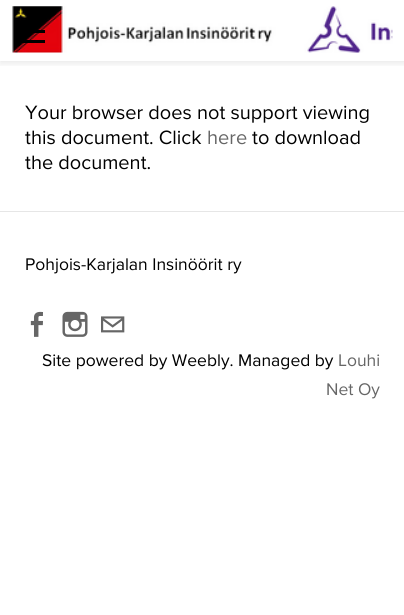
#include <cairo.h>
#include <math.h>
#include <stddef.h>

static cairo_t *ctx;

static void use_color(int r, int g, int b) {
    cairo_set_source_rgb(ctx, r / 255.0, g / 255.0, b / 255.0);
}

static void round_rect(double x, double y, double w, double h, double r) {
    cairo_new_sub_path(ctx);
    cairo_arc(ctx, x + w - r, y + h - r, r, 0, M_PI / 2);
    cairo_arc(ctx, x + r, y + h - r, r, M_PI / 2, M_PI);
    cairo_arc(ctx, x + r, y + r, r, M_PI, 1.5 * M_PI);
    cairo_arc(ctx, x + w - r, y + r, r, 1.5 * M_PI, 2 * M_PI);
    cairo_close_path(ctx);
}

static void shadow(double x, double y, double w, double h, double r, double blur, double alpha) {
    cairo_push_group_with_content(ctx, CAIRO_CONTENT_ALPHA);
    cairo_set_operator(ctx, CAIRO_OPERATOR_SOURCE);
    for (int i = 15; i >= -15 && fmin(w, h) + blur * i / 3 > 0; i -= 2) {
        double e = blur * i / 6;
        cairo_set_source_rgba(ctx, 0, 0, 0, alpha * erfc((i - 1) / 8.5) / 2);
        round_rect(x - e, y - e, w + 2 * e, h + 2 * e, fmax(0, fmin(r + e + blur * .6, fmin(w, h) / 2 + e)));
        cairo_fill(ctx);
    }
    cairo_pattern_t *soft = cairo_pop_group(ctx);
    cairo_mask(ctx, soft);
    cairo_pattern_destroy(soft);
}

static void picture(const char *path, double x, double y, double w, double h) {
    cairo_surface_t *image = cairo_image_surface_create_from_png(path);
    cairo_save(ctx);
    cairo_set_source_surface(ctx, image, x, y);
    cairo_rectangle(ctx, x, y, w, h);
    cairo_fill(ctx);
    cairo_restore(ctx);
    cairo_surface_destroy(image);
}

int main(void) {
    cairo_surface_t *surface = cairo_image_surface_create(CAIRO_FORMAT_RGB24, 404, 615);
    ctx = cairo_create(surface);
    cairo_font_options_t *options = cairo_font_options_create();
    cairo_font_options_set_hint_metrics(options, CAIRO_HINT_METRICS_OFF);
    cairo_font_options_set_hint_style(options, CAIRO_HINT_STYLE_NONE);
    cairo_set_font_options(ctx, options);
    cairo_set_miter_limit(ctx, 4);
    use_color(255, 255, 255);
    cairo_paint(ctx);
    cairo_save(ctx);
    cairo_rectangle(ctx, 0, 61, 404, 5);
    cairo_clip(ctx);
    use_color(0, 0, 0);
    shadow(0, 1, 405, 62, 0, 4, 0.1);
    cairo_restore(ctx);
    picture("img1.png", 12, 6, 381, 47);
    use_color(0, 0, 0);
    cairo_rectangle(ctx, 33, 30, 12, 3);
    cairo_fill(ctx);
    cairo_rectangle(ctx, 18, 40, 27, 3);
    cairo_fill(ctx);
    cairo_select_font_face(ctx, "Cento", CAIRO_FONT_SLANT_NORMAL, CAIRO_FONT_WEIGHT_NORMAL);
    cairo_set_font_size(ctx, 20);
    cairo_move_to(ctx, 25, 119);
    cairo_show_text(ctx, "Your browser does not support viewing");
    cairo_move_to(ctx, 25, 144);
    cairo_show_text(ctx, "this document. Click");
    use_color(102, 102, 102);
    cairo_move_to(ctx, 207, 144);
    cairo_show_text(ctx, "here");
    use_color(0, 0, 0);
    cairo_move_to(ctx, 252, 144);
    cairo_show_text(ctx, "to download");
    cairo_move_to(ctx, 25, 169);
    cairo_show_text(ctx, "the document.");
    use_color(230, 230, 230);
    cairo_rectangle(ctx, 0, 211, 404, 1);
    cairo_fill(ctx);
    cairo_set_font_size(ctx, 17.5);
    use_color(0, 0, 0);
    cairo_move_to(ctx, 25, 270);
    cairo_show_text(ctx, "Pohjois-Karjalan Insinöörit ry");
    picture("img2.png", 30, 311, 13, 26);
    picture("img3.png", 62, 311, 26, 26);
    picture("img4.png", 101, 316, 24, 17);
    cairo_move_to(ctx, 42, 366);
    cairo_show_text(ctx, "Site powered by Weebly. Managed by");
    use_color(102, 102, 102);
    cairo_move_to(ctx, 338, 366);
    cairo_show_text(ctx, "Louhi");
    cairo_move_to(ctx, 326, 395);
    cairo_show_text(ctx, "Net Oy");
    cairo_surface_write_to_png(surface, "result.png");
    cairo_font_options_destroy(options);
    cairo_destroy(ctx);
    cairo_surface_destroy(surface);
    return 0;
}
